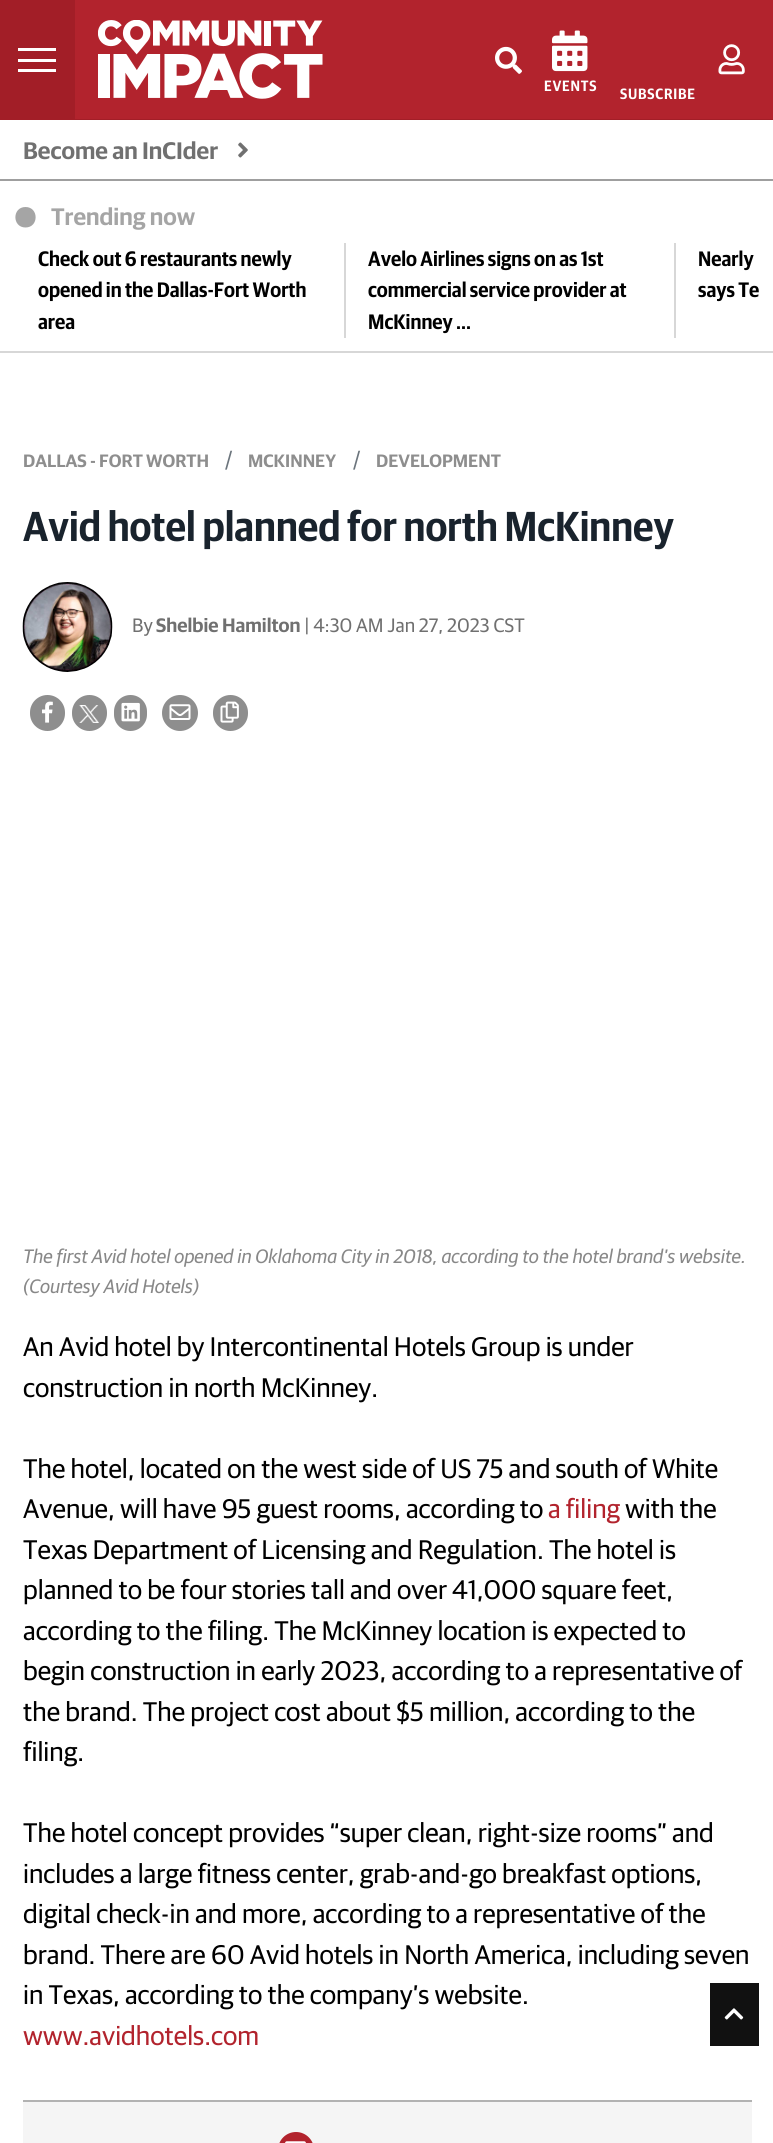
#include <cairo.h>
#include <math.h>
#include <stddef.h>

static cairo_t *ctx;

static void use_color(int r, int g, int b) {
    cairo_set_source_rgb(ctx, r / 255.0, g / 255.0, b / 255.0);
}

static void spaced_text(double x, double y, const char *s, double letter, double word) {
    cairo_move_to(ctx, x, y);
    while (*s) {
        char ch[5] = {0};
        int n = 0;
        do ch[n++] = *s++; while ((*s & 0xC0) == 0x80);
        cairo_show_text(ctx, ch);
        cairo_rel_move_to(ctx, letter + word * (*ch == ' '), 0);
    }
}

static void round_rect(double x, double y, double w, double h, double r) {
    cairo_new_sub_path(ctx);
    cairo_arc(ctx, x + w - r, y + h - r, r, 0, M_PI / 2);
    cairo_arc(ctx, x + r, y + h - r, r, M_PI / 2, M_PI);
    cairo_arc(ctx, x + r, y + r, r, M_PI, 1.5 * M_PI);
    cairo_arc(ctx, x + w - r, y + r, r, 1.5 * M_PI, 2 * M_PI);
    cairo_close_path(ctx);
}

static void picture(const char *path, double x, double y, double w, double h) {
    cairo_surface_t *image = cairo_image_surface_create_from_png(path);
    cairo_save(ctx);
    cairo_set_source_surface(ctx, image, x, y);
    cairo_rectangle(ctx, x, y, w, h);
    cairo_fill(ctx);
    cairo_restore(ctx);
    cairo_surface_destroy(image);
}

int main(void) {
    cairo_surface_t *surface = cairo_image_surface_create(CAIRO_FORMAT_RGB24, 773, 2143);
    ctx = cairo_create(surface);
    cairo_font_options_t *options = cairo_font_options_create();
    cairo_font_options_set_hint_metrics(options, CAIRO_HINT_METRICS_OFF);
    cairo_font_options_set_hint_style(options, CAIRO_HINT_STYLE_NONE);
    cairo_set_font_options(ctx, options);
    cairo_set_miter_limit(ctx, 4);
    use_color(255, 255, 255);
    cairo_paint(ctx);
    use_color(178, 35, 45);
    cairo_rectangle(ctx, 75, 0, 698, 119);
    cairo_fill(ctx);
    use_color(162, 30, 39);
    cairo_rectangle(ctx, 75, 119, 698, 1);
    cairo_fill(ctx);
    cairo_rectangle(ctx, 0, 0, 75, 120);
    cairo_fill(ctx);
    use_color(255, 255, 255);
    cairo_rectangle(ctx, 18, 59, 38, 3);
    cairo_fill(ctx);
    cairo_rectangle(ctx, 18, 48, 38, 3);
    cairo_fill(ctx);
    cairo_rectangle(ctx, 18, 69, 38, 3);
    cairo_fill(ctx);
    picture("img1.png", 98, 20, 225, 79);
    picture("img2.png", 495, 46, 27, 28);
    picture("img3.png", 718, 44, 27, 31);
    picture("img4.png", 552, 30, 36, 42);
    cairo_select_font_face(ctx, "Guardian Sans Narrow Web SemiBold", CAIRO_FONT_SLANT_NORMAL, CAIRO_FONT_WEIGHT_NORMAL);
    cairo_set_font_size(ctx, 15);
    spaced_text(544, 91, "EVENTS", 0.75, 0);
    spaced_text(620, 99, "SUBSCRIBE", 0.75, 0);
    use_color(159, 159, 159);
    cairo_rectangle(ctx, 0, 179, 773, 2);
    cairo_fill(ctx);
    cairo_select_font_face(ctx, "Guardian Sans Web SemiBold", CAIRO_FONT_SLANT_NORMAL, CAIRO_FONT_WEIGHT_NORMAL);
    cairo_set_font_size(ctx, 24);
    use_color(112, 112, 112);
    cairo_move_to(ctx, 23, 159);
    cairo_show_text(ctx, "Become an InCIder");
    picture("img5.png", 238, 142, 10, 16);
    use_color(215, 215, 215);
    cairo_rectangle(ctx, 0, 351, 773, 2);
    cairo_fill(ctx);
    use_color(165, 165, 165);
    cairo_new_path(ctx);
    cairo_move_to(ctx, 25.5, 207);
    cairo_curve_to(ctx, 12, 207, 12, 227.5, 25.5, 227.5);
    cairo_curve_to(ctx, 39, 227.5, 39, 207, 25.5, 207);
    cairo_close_path(ctx);
    cairo_fill(ctx);
    cairo_move_to(ctx, 51, 225);
    cairo_show_text(ctx, "Trending now");
    use_color(215, 215, 215);
    cairo_rectangle(ctx, 344, 243, 2, 95);
    cairo_fill(ctx);
    cairo_select_font_face(ctx, "Guardian Sans Narrow Web SemiBold", CAIRO_FONT_SLANT_NORMAL, CAIRO_FONT_WEIGHT_NORMAL);
    cairo_set_font_size(ctx, 21);
    use_color(0, 0, 0);
    cairo_move_to(ctx, 38, 266);
    cairo_show_text(ctx, "Check out 6 restaurants newly");
    cairo_move_to(ctx, 38, 297);
    cairo_show_text(ctx, "opened in the Dallas-Fort Worth");
    cairo_move_to(ctx, 38, 329);
    cairo_show_text(ctx, "area");
    use_color(215, 215, 215);
    cairo_rectangle(ctx, 674, 243, 2, 95);
    cairo_fill(ctx);
    use_color(0, 0, 0);
    cairo_move_to(ctx, 368, 266);
    cairo_show_text(ctx, "Avelo Airlines signs on as 1st");
    cairo_move_to(ctx, 368, 297);
    cairo_show_text(ctx, "commercial service provider at");
    cairo_move_to(ctx, 368, 329);
    cairo_show_text(ctx, "McKinney ...");
    cairo_move_to(ctx, 698, 266);
    cairo_show_text(ctx, "Nearly");
    cairo_move_to(ctx, 698, 297);
    cairo_show_text(ctx, "says Te");
    cairo_select_font_face(ctx, "Guardian Sans Web SemiBold", CAIRO_FONT_SLANT_NORMAL, CAIRO_FONT_WEIGHT_NORMAL);
    cairo_set_font_size(ctx, 18);
    use_color(142, 142, 142);
    cairo_move_to(ctx, 23, 467);
    cairo_show_text(ctx, "DALLAS - FORT WORTH");
    cairo_select_font_face(ctx, "Guardian Sans Web", CAIRO_FONT_SLANT_NORMAL, CAIRO_FONT_WEIGHT_NORMAL);
    cairo_set_font_size(ctx, 22);
    use_color(108, 117, 125);
    cairo_move_to(ctx, 225, 467);
    cairo_show_text(ctx, "/");
    cairo_select_font_face(ctx, "Guardian Sans Web SemiBold", CAIRO_FONT_SLANT_NORMAL, CAIRO_FONT_WEIGHT_NORMAL);
    cairo_set_font_size(ctx, 18);
    use_color(142, 142, 142);
    cairo_move_to(ctx, 248, 467);
    cairo_show_text(ctx, "MCKINNEY");
    cairo_select_font_face(ctx, "Guardian Sans Web", CAIRO_FONT_SLANT_NORMAL, CAIRO_FONT_WEIGHT_NORMAL);
    cairo_set_font_size(ctx, 22);
    use_color(108, 117, 125);
    cairo_move_to(ctx, 353, 467);
    cairo_show_text(ctx, "/");
    cairo_select_font_face(ctx, "Guardian Sans Web SemiBold", CAIRO_FONT_SLANT_NORMAL, CAIRO_FONT_WEIGHT_NORMAL);
    cairo_set_font_size(ctx, 18);
    use_color(142, 142, 142);
    cairo_move_to(ctx, 376, 467);
    cairo_show_text(ctx, "DEVELOPMENT");
    cairo_select_font_face(ctx, "Guardian Sans Narrow Web SemiBold", CAIRO_FONT_SLANT_NORMAL, CAIRO_FONT_WEIGHT_NORMAL);
    cairo_set_font_size(ctx, 42);
    use_color(25, 35, 45);
    cairo_move_to(ctx, 23, 541);
    cairo_show_text(ctx, "Avid hotel planned for north McKinney");
    picture("img6.png", 22, 582, 91, 90);
    cairo_select_font_face(ctx, "Guardian Sans Web", CAIRO_FONT_SLANT_NORMAL, CAIRO_FONT_WEIGHT_NORMAL);
    cairo_set_font_size(ctx, 19.5);
    use_color(112, 112, 112);
    cairo_move_to(ctx, 132, 632);
    cairo_show_text(ctx, "By");
    cairo_select_font_face(ctx, "Guardian Sans Web SemiBold", CAIRO_FONT_SLANT_NORMAL, CAIRO_FONT_WEIGHT_NORMAL);
    cairo_move_to(ctx, 156, 632);
    cairo_show_text(ctx, "Shelbie Hamilton");
    cairo_select_font_face(ctx, "Guardian Sans Web", CAIRO_FONT_SLANT_NORMAL, CAIRO_FONT_WEIGHT_NORMAL);
    cairo_move_to(ctx, 304, 632);
    cairo_show_text(ctx, "| 4:30 AM Jan 27, 2023 CST");
    use_color(142, 142, 142);
    round_rect(30, 695, 35, 36, 17.5);
    cairo_fill(ctx);
    picture("img7.png", 42, 701, 11, 22);
    round_rect(72, 695, 35, 36, 17.5);
    cairo_fill(ctx);
    picture("img8.png", 79, 705, 20, 18);
    round_rect(114, 695, 33, 36, 16.5);
    cairo_fill(ctx);
    picture("img9.png", 121, 702, 19, 20);
    cairo_arc(ctx, 180, 713, 18, 0, 2 * M_PI);
    cairo_fill(ctx);
    picture("img10.png", 169, 704, 22, 16);
    round_rect(213, 695, 35, 36, 17.5);
    cairo_fill(ctx);
    picture("img11.png", 220, 701, 19, 22);
    cairo_select_font_face(ctx, "Guardian Sans Web", CAIRO_FONT_SLANT_ITALIC, CAIRO_FONT_WEIGHT_NORMAL);
    use_color(136, 136, 136);
    cairo_move_to(ctx, 23, 1263);
    cairo_show_text(ctx, "The first Avid hotel opened in Oklahoma City in 2018, according to the hotel brand's website.");
    cairo_move_to(ctx, 23, 1293);
    cairo_show_text(ctx, "(Courtesy Avid Hotels)");
    cairo_select_font_face(ctx, "Guardian Sans Web", CAIRO_FONT_SLANT_NORMAL, CAIRO_FONT_WEIGHT_NORMAL);
    cairo_set_font_size(ctx, 27);
    use_color(0, 0, 0);
    cairo_move_to(ctx, 23, 1356);
    cairo_show_text(ctx, "An Avid hotel by Intercontinental Hotels Group is under");
    cairo_move_to(ctx, 23, 1397);
    cairo_show_text(ctx, "construction in north McKinney.");
    cairo_move_to(ctx, 23, 1478);
    cairo_show_text(ctx, "The hotel, located on the west side of US 75 and south of White");
    cairo_move_to(ctx, 23, 1518);
    cairo_show_text(ctx, "Avenue, will have 95 guest rooms, according to");
    use_color(178, 35, 45);
    cairo_move_to(ctx, 548, 1518);
    cairo_show_text(ctx, "a filing");
    use_color(0, 0, 0);
    cairo_move_to(ctx, 625, 1518);
    cairo_show_text(ctx, "with the");
    cairo_move_to(ctx, 23, 1559);
    cairo_show_text(ctx, "Texas Department of Licensing and Regulation. The hotel is");
    cairo_move_to(ctx, 23, 1599);
    cairo_show_text(ctx, "planned to be four stories tall and over 41,000 square feet,");
    cairo_move_to(ctx, 23, 1640);
    cairo_show_text(ctx, "according to the filing. The McKinney location is expected to");
    cairo_move_to(ctx, 23, 1680);
    cairo_show_text(ctx, "begin construction in early 2023, according to a representative of");
    cairo_move_to(ctx, 23, 1721);
    cairo_show_text(ctx, "the brand. The project cost about $5 million, according to the");
    cairo_move_to(ctx, 23, 1761);
    cairo_show_text(ctx, "filing.");
    cairo_move_to(ctx, 23, 1842);
    cairo_show_text(ctx, "The hotel concept provides “super clean, right-size rooms” and");
    cairo_move_to(ctx, 23, 1883);
    cairo_show_text(ctx, "includes a large fitness center, grab-and-go breakfast options,");
    cairo_move_to(ctx, 23, 1923);
    cairo_show_text(ctx, "digital check-in and more, according to a representative of the");
    cairo_move_to(ctx, 23, 1964);
    cairo_show_text(ctx, "brand. There are 60 Avid hotels in North America, including seven");
    cairo_move_to(ctx, 23, 2004);
    cairo_show_text(ctx, "in Texas, according to the company’s website.");
    use_color(178, 35, 45);
    cairo_move_to(ctx, 23, 2045);
    cairo_show_text(ctx, "www.avidhotels.com");
    use_color(245, 245, 245);
    cairo_rectangle(ctx, 23, 2102, 729, 41);
    cairo_fill(ctx);
    use_color(178, 178, 178);
    cairo_rectangle(ctx, 23, 2100, 729, 2);
    cairo_fill(ctx);
    use_color(178, 35, 45);
    round_rect(278, 2132, 36, 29, 18);
    cairo_fill(ctx);
    picture("img12.png", 285, 2141, 21, 2);
    use_color(17, 17, 17);
    cairo_rectangle(ctx, 710, 1983, 49, 63);
    cairo_fill(ctx);
    picture("img13.png", 724, 2008, 20, 12);
    cairo_surface_write_to_png(surface, "result.png");
    cairo_font_options_destroy(options);
    cairo_destroy(ctx);
    cairo_surface_destroy(surface);
    return 0;
}
